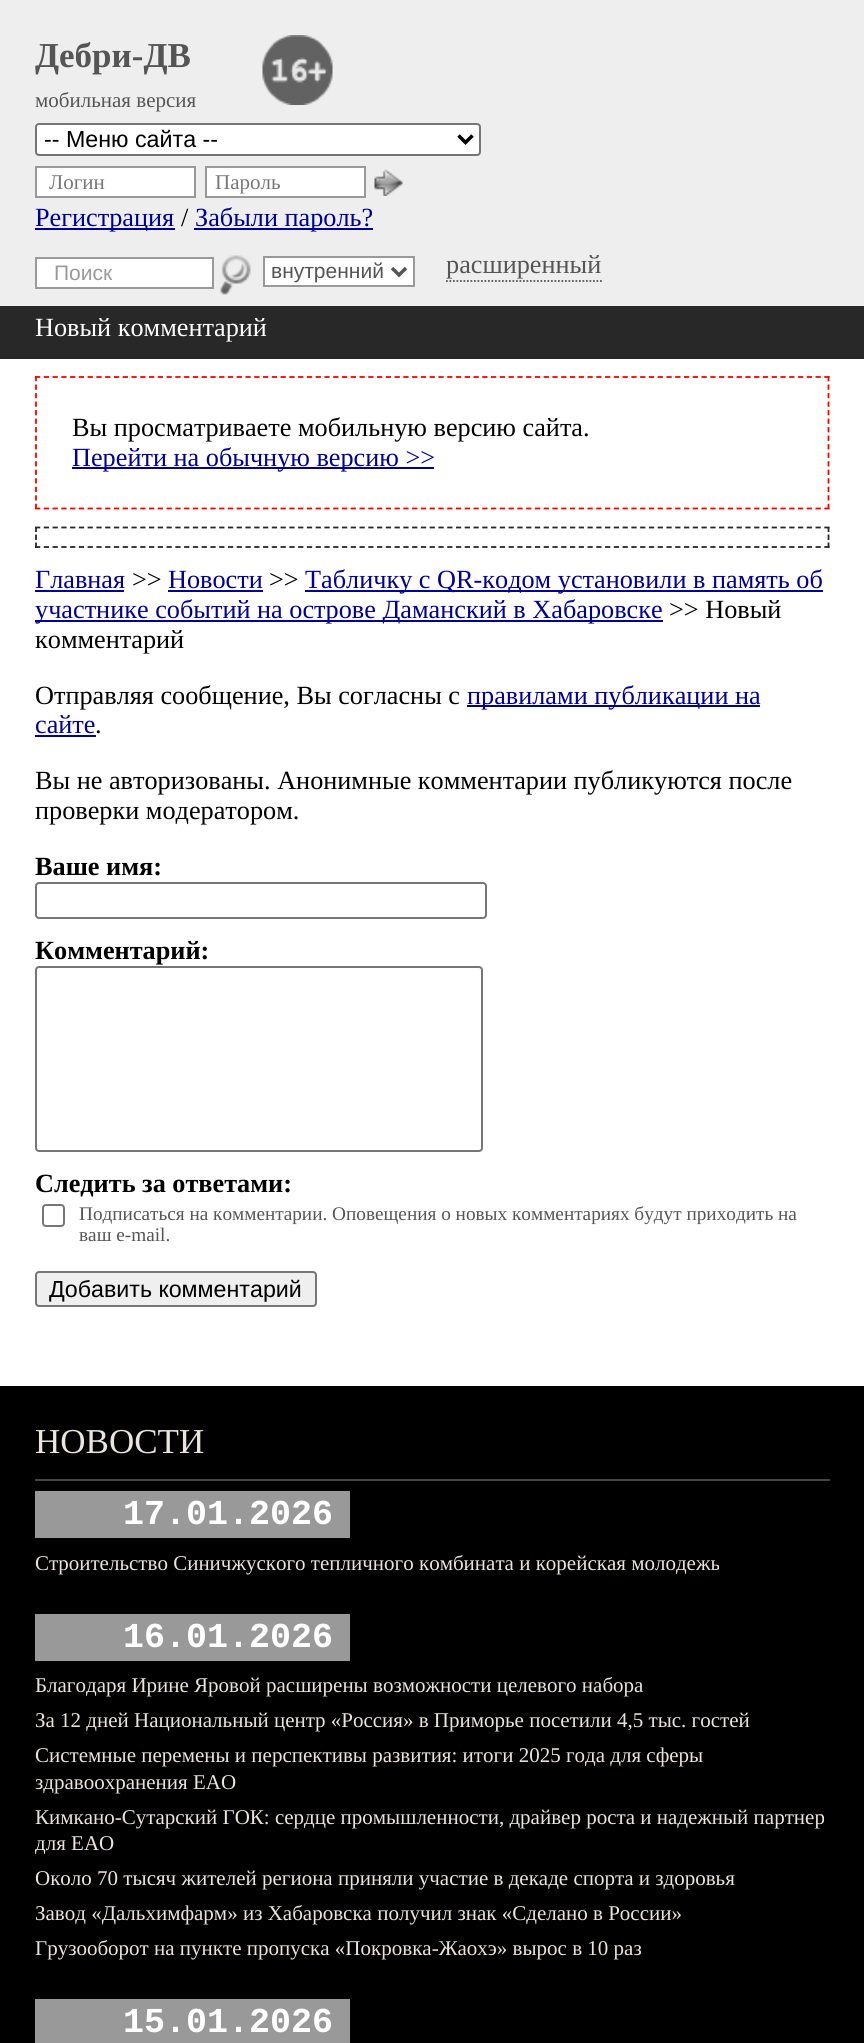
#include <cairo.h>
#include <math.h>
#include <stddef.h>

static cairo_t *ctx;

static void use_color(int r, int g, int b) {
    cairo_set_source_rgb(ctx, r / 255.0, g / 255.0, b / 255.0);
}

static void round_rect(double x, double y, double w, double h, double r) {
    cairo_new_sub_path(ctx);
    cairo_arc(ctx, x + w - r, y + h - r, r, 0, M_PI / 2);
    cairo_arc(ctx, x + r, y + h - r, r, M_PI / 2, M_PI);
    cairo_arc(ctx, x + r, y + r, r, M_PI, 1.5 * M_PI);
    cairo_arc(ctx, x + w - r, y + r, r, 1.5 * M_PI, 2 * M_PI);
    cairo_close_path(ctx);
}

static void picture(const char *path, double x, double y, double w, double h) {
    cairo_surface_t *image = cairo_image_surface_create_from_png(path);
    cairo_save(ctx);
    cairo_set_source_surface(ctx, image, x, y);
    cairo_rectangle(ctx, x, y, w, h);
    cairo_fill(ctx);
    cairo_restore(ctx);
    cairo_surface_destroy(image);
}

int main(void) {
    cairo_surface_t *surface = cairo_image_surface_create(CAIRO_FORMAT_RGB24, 864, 2043);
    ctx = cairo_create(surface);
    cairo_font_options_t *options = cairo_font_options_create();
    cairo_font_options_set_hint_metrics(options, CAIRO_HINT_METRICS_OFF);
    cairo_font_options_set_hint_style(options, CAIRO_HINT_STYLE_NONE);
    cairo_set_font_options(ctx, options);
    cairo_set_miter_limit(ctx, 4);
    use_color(255, 255, 255);
    cairo_paint(ctx);
    use_color(238, 238, 238);
    cairo_rectangle(ctx, 0, 0, 864, 306);
    cairo_fill(ctx);
    cairo_select_font_face(ctx, "Liberation Serif", CAIRO_FONT_SLANT_NORMAL, CAIRO_FONT_WEIGHT_BOLD);
    cairo_set_font_size(ctx, 35);
    use_color(85, 85, 85);
    cairo_move_to(ctx, 35, 67);
    cairo_show_text(ctx, "Дебри-ДВ");
    picture("img1.png", 262, 35, 71, 70);
    cairo_select_font_face(ctx, "Liberation Serif", CAIRO_FONT_SLANT_NORMAL, CAIRO_FONT_WEIGHT_NORMAL);
    cairo_set_font_size(ctx, 21);
    cairo_move_to(ctx, 35, 107);
    cairo_show_text(ctx, "мобильная версия");
    use_color(255, 255, 255);
    round_rect(36, 124, 444, 31, 3);
    cairo_fill_preserve(ctx);
    use_color(118, 118, 118);
    cairo_stroke(ctx);
    cairo_new_path(ctx);
    cairo_move_to(ctx, 458.5, 135.5);
    cairo_line_to(ctx, 465.5, 142.5);
    cairo_line_to(ctx, 472.5, 135.5);
    use_color(0, 0, 0);
    cairo_set_line_width(ctx, 3.5);
    cairo_stroke(ctx);
    cairo_select_font_face(ctx, "Liberation Sans", CAIRO_FONT_SLANT_NORMAL, CAIRO_FONT_WEIGHT_NORMAL);
    cairo_set_font_size(ctx, 23.25);
    cairo_move_to(ctx, 44, 147);
    cairo_show_text(ctx, "-- Меню сайта --");
    use_color(255, 255, 255);
    cairo_rectangle(ctx, 36, 167, 159, 30);
    cairo_fill_preserve(ctx);
    use_color(153, 153, 153);
    cairo_set_line_width(ctx, 2);
    cairo_stroke(ctx);
    use_color(255, 255, 255);
    cairo_rectangle(ctx, 206, 167, 159, 30);
    cairo_fill_preserve(ctx);
    use_color(153, 153, 153);
    cairo_stroke(ctx);
    picture("img2.png", 374, 169, 29, 27);
    cairo_select_font_face(ctx, "Liberation Serif", CAIRO_FONT_SLANT_NORMAL, CAIRO_FONT_WEIGHT_NORMAL);
    cairo_set_font_size(ctx, 21);
    use_color(119, 119, 119);
    cairo_move_to(ctx, 49, 189);
    cairo_show_text(ctx, "Логин");
    cairo_move_to(ctx, 215, 189);
    cairo_show_text(ctx, "Пароль");
    use_color(0, 0, 153);
    cairo_rectangle(ctx, 35, 228, 140, 2);
    cairo_fill(ctx);
    cairo_set_font_size(ctx, 26.25);
    cairo_move_to(ctx, 35, 226);
    cairo_show_text(ctx, "Регистрация");
    use_color(0, 0, 0);
    cairo_move_to(ctx, 181, 226);
    cairo_show_text(ctx, "/");
    use_color(0, 0, 153);
    cairo_rectangle(ctx, 194, 228, 179, 2);
    cairo_fill(ctx);
    cairo_move_to(ctx, 195, 226);
    cairo_show_text(ctx, "Забыли пароль?");
    use_color(255, 255, 255);
    cairo_rectangle(ctx, 36, 258, 177, 30);
    cairo_fill_preserve(ctx);
    use_color(153, 153, 153);
    cairo_stroke(ctx);
    cairo_select_font_face(ctx, "Liberation Sans", CAIRO_FONT_SLANT_NORMAL, CAIRO_FONT_WEIGHT_NORMAL);
    cairo_set_font_size(ctx, 21);
    cairo_move_to(ctx, 54, 280);
    cairo_show_text(ctx, "Поиск");
    picture("img3.png", 220, 255, 31, 40);
    use_color(255, 255, 255);
    cairo_rectangle(ctx, 264, 257, 150, 29);
    cairo_fill_preserve(ctx);
    use_color(153, 153, 153);
    cairo_stroke(ctx);
    cairo_new_path(ctx);
    cairo_move_to(ctx, 392, 268);
    cairo_line_to(ctx, 399, 275);
    cairo_line_to(ctx, 406, 268);
    use_color(85, 85, 85);
    cairo_set_line_width(ctx, 3.5);
    cairo_stroke(ctx);
    cairo_move_to(ctx, 271, 278);
    cairo_show_text(ctx, "внутренний");
    cairo_new_path(ctx);
    cairo_move_to(ctx, 446, 281);
    cairo_line_to(ctx, 602, 281);
    cairo_set_line_width(ctx, 1.8);
    cairo_set_dash(ctx, (double[]){1.75, 1.75}, 2, 0);
    cairo_stroke(ctx);
    cairo_select_font_face(ctx, "Liberation Serif", CAIRO_FONT_SLANT_NORMAL, CAIRO_FONT_WEIGHT_NORMAL);
    cairo_set_font_size(ctx, 26.25);
    cairo_move_to(ctx, 446, 273);
    cairo_show_text(ctx, "расширенный");
    use_color(40, 40, 40);
    cairo_rectangle(ctx, 0, 306, 864, 53);
    cairo_fill(ctx);
    use_color(255, 255, 255);
    cairo_move_to(ctx, 35, 336);
    cairo_show_text(ctx, "Новый комментарий");
    cairo_new_path(ctx);
    cairo_move_to(ctx, 35, 377);
    cairo_line_to(ctx, 829.5, 377);
    use_color(255, 0, 0);
    cairo_set_dash(ctx, (double[]){5.25, 3.52}, 2, 0);
    cairo_stroke(ctx);
    cairo_new_path(ctx);
    cairo_move_to(ctx, 828.5, 376);
    cairo_line_to(ctx, 828.5, 509);
    cairo_set_dash(ctx, (double[]){5.25, 3.27}, 2, 0);
    cairo_stroke(ctx);
    cairo_new_path(ctx);
    cairo_move_to(ctx, 35, 508.5);
    cairo_line_to(ctx, 829.5, 508.5);
    cairo_set_dash(ctx, (double[]){5.25, 3.52}, 2, 0);
    cairo_stroke(ctx);
    cairo_new_path(ctx);
    cairo_move_to(ctx, 36, 376);
    cairo_line_to(ctx, 36, 509);
    cairo_set_dash(ctx, (double[]){5.25, 3.27}, 2, 0);
    cairo_stroke(ctx);
    use_color(0, 0, 0);
    cairo_move_to(ctx, 72, 436);
    cairo_show_text(ctx, "Вы просматриваете мобильную версию сайта.");
    use_color(0, 0, 153);
    cairo_rectangle(ctx, 72, 467, 362, 2);
    cairo_fill(ctx);
    cairo_move_to(ctx, 72, 466);
    cairo_show_text(ctx, "Перейти на обычную версию >>");
    cairo_new_path(ctx);
    cairo_move_to(ctx, 35, 527.5);
    cairo_line_to(ctx, 829.5, 527.5);
    use_color(40, 40, 40);
    cairo_set_dash(ctx, (double[]){5.25, 3.52}, 2, 0);
    cairo_stroke(ctx);
    cairo_new_path(ctx);
    cairo_move_to(ctx, 828.5, 527);
    cairo_line_to(ctx, 828.5, 532);
    cairo_move_to(ctx, 828.5, 534.5);
    cairo_line_to(ctx, 828.5, 540);
    cairo_move_to(ctx, 828.5, 542.5);
    cairo_line_to(ctx, 828.5, 548);
    cairo_set_dash(ctx, NULL, 0, 0);
    cairo_stroke(ctx);
    cairo_new_path(ctx);
    cairo_move_to(ctx, 35, 547);
    cairo_line_to(ctx, 829.5, 547);
    cairo_set_dash(ctx, (double[]){5.25, 3.52}, 2, 0);
    cairo_stroke(ctx);
    cairo_new_path(ctx);
    cairo_move_to(ctx, 36, 527);
    cairo_line_to(ctx, 36, 532);
    cairo_move_to(ctx, 36, 534.5);
    cairo_line_to(ctx, 36, 540);
    cairo_move_to(ctx, 36, 542.5);
    cairo_line_to(ctx, 36, 548);
    cairo_set_dash(ctx, NULL, 0, 0);
    cairo_stroke(ctx);
    use_color(0, 0, 153);
    cairo_move_to(ctx, 35, 588);
    cairo_show_text(ctx, "Главная");
    cairo_rectangle(ctx, 35, 590, 89, 2);
    cairo_fill(ctx);
    use_color(0, 0, 0);
    cairo_move_to(ctx, 132, 588);
    cairo_show_text(ctx, ">>");
    use_color(0, 0, 153);
    cairo_move_to(ctx, 168, 588);
    cairo_show_text(ctx, "Новости");
    cairo_rectangle(ctx, 168, 590, 95, 2);
    cairo_fill(ctx);
    use_color(0, 0, 0);
    cairo_move_to(ctx, 269, 588);
    cairo_show_text(ctx, ">>");
    use_color(0, 0, 153);
    cairo_rectangle(ctx, 305, 590, 518, 2);
    cairo_fill(ctx);
    cairo_move_to(ctx, 305, 588);
    cairo_show_text(ctx, "Табличку с QR-кодом установили в память об");
    cairo_rectangle(ctx, 35, 620, 628, 2);
    cairo_fill(ctx);
    cairo_move_to(ctx, 35, 618);
    cairo_show_text(ctx, "участнике событий на острове Даманский в Хабаровске");
    use_color(0, 0, 0);
    cairo_move_to(ctx, 669, 618);
    cairo_show_text(ctx, ">> Новый");
    cairo_move_to(ctx, 35, 648);
    cairo_show_text(ctx, "комментарий");
    cairo_move_to(ctx, 35, 704);
    cairo_show_text(ctx, "Отправляя сообщение, Вы согласны с");
    use_color(0, 0, 153);
    cairo_rectangle(ctx, 467, 705, 293, 2);
    cairo_fill(ctx);
    cairo_move_to(ctx, 467, 704);
    cairo_show_text(ctx, "правилами публикации на");
    cairo_move_to(ctx, 35, 733);
    cairo_show_text(ctx, "сайте");
    cairo_rectangle(ctx, 35, 735, 61, 2);
    cairo_fill(ctx);
    use_color(0, 0, 0);
    cairo_move_to(ctx, 95, 733);
    cairo_show_text(ctx, ".");
    cairo_move_to(ctx, 35, 789);
    cairo_show_text(ctx, "Вы не авторизованы. Анонимные комментарии публикуются после");
    cairo_move_to(ctx, 35, 819);
    cairo_show_text(ctx, "проверки модератором.");
    cairo_select_font_face(ctx, "Liberation Serif", CAIRO_FONT_SLANT_NORMAL, CAIRO_FONT_WEIGHT_BOLD);
    cairo_move_to(ctx, 35, 875);
    cairo_show_text(ctx, "Ваше имя:");
    round_rect(36, 883, 450, 35, 3);
    use_color(118, 118, 118);
    cairo_set_line_width(ctx, 2);
    cairo_stroke(ctx);
    use_color(0, 0, 0);
    cairo_move_to(ctx, 35, 959);
    cairo_show_text(ctx, "Комментарий:");
    round_rect(36, 967, 446, 184, 3);
    use_color(118, 118, 118);
    cairo_stroke(ctx);
    use_color(0, 0, 0);
    cairo_move_to(ctx, 35, 1192);
    cairo_show_text(ctx, "Следить за ответами:");
    round_rect(43, 1205, 21, 21, 3);
    use_color(118, 118, 118);
    cairo_stroke(ctx);
    cairo_select_font_face(ctx, "Liberation Serif", CAIRO_FONT_SLANT_NORMAL, CAIRO_FONT_WEIGHT_NORMAL);
    cairo_set_font_size(ctx, 19.25);
    use_color(85, 85, 85);
    cairo_move_to(ctx, 79, 1220);
    cairo_show_text(ctx, "Подписаться на комментарии. Оповещения о новых комментариях будут приходить на");
    cairo_move_to(ctx, 79, 1241);
    cairo_show_text(ctx, "ваш e-mail.");
    use_color(239, 239, 239);
    round_rect(36, 1272, 280, 34, 3);
    cairo_fill_preserve(ctx);
    use_color(118, 118, 118);
    cairo_stroke(ctx);
    cairo_select_font_face(ctx, "Liberation Sans", CAIRO_FONT_SLANT_NORMAL, CAIRO_FONT_WEIGHT_NORMAL);
    cairo_set_font_size(ctx, 23.25);
    use_color(0, 0, 0);
    cairo_move_to(ctx, 49, 1297);
    cairo_show_text(ctx, "Добавить комментарий");
    cairo_rectangle(ctx, 0, 1386, 864, 657);
    cairo_fill(ctx);
    use_color(70, 69, 68);
    cairo_rectangle(ctx, 35, 1479, 795, 2);
    cairo_fill(ctx);
    cairo_select_font_face(ctx, "Liberation Serif", CAIRO_FONT_SLANT_NORMAL, CAIRO_FONT_WEIGHT_NORMAL);
    cairo_set_font_size(ctx, 35);
    use_color(233, 228, 224);
    cairo_move_to(ctx, 35, 1453);
    cairo_show_text(ctx, "НОВОСТИ");
    use_color(153, 153, 153);
    cairo_rectangle(ctx, 35, 1491, 315, 47);
    cairo_fill(ctx);
    cairo_select_font_face(ctx, "Liberation Mono", CAIRO_FONT_SLANT_NORMAL, CAIRO_FONT_WEIGHT_BOLD);
    use_color(255, 255, 255);
    cairo_move_to(ctx, 123, 1524);
    cairo_show_text(ctx, "17.01.2026");
    cairo_select_font_face(ctx, "Liberation Serif", CAIRO_FONT_SLANT_NORMAL, CAIRO_FONT_WEIGHT_NORMAL);
    cairo_set_font_size(ctx, 21);
    use_color(233, 228, 224);
    cairo_move_to(ctx, 35, 1570);
    cairo_show_text(ctx, "Строительство Синичжуского тепличного комбината и корейская молодежь");
    use_color(153, 153, 153);
    cairo_rectangle(ctx, 35, 1614, 315, 47);
    cairo_fill(ctx);
    cairo_select_font_face(ctx, "Liberation Mono", CAIRO_FONT_SLANT_NORMAL, CAIRO_FONT_WEIGHT_BOLD);
    cairo_set_font_size(ctx, 35);
    use_color(255, 255, 255);
    cairo_move_to(ctx, 123, 1647);
    cairo_show_text(ctx, "16.01.2026");
    cairo_select_font_face(ctx, "Liberation Serif", CAIRO_FONT_SLANT_NORMAL, CAIRO_FONT_WEIGHT_NORMAL);
    cairo_set_font_size(ctx, 21);
    use_color(233, 228, 224);
    cairo_move_to(ctx, 35, 1692);
    cairo_show_text(ctx, "Благодаря Ирине Яровой расширены возможности целевого набора");
    cairo_move_to(ctx, 35, 1727);
    cairo_show_text(ctx, "За 12 дней Национальный центр «Россия» в Приморье посетили 4,5 тыс. гостей");
    cairo_move_to(ctx, 35, 1762);
    cairo_show_text(ctx, "Системные перемены и перспективы развития: итоги 2025 года для сферы");
    cairo_move_to(ctx, 35, 1789);
    cairo_show_text(ctx, "здравоохранения ЕАО");
    cairo_move_to(ctx, 35, 1824);
    cairo_show_text(ctx, "Кимкано-Сутарский ГОК: сердце промышленности, драйвер роста и надежный партнер");
    cairo_move_to(ctx, 35, 1850);
    cairo_show_text(ctx, "для ЕАО");
    cairo_move_to(ctx, 35, 1885);
    cairo_show_text(ctx, "Около 70 тысяч жителей региона приняли участие в декаде спорта и здоровья");
    cairo_move_to(ctx, 35, 1920);
    cairo_show_text(ctx, "Завод «Дальхимфарм» из Хабаровска получил знак «Сделано в России»");
    cairo_move_to(ctx, 35, 1955);
    cairo_show_text(ctx, "Грузооборот на пункте пропуска «Покровка-Жаохэ» вырос в 10 раз");
    use_color(153, 153, 153);
    cairo_rectangle(ctx, 35, 1999, 315, 44);
    cairo_fill(ctx);
    cairo_select_font_face(ctx, "Liberation Mono", CAIRO_FONT_SLANT_NORMAL, CAIRO_FONT_WEIGHT_BOLD);
    cairo_set_font_size(ctx, 35);
    use_color(255, 255, 255);
    cairo_move_to(ctx, 123, 2032);
    cairo_show_text(ctx, "15.01.2026");
    cairo_surface_write_to_png(surface, "result.png");
    cairo_font_options_destroy(options);
    cairo_destroy(ctx);
    cairo_surface_destroy(surface);
    return 0;
}
